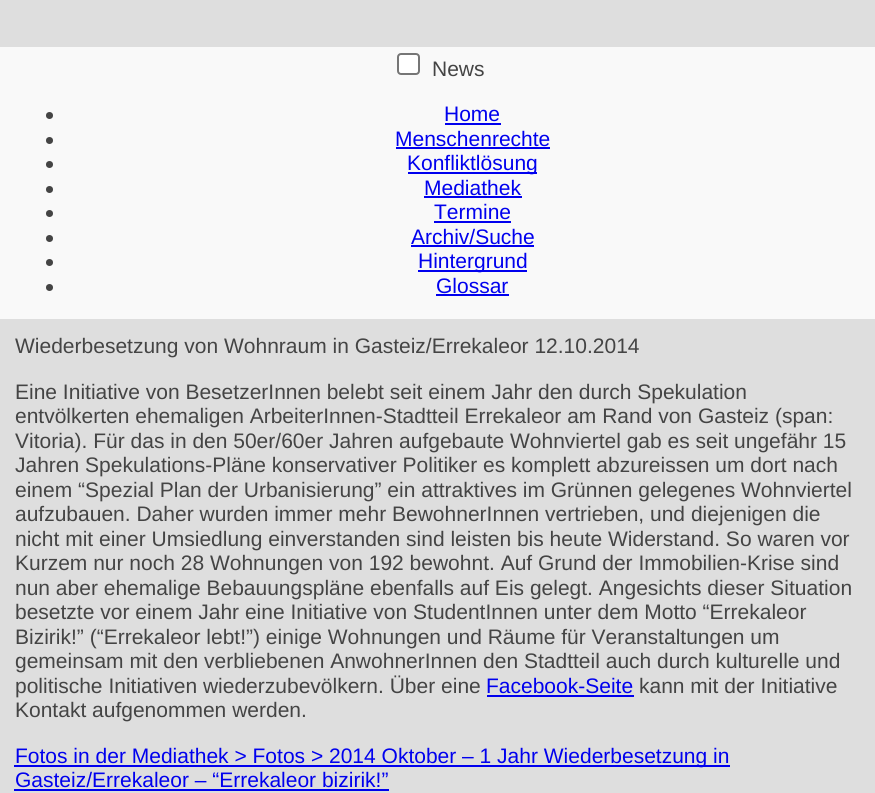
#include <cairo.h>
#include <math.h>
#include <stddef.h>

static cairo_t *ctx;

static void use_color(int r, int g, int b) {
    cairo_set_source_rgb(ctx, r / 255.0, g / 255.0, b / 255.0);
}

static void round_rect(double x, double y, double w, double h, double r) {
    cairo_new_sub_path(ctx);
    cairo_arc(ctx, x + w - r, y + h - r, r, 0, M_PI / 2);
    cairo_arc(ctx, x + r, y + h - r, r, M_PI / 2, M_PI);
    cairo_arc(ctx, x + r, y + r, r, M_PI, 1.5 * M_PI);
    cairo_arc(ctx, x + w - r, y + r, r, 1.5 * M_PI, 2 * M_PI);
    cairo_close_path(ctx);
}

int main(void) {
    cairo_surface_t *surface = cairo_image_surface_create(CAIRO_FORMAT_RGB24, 875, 793);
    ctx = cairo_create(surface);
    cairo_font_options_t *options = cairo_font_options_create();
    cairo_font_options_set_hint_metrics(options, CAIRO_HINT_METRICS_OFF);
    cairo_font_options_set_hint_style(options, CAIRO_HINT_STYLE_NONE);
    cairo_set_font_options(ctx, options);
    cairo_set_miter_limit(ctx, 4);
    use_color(249, 249, 249);
    cairo_paint(ctx);
    use_color(222, 222, 222);
    cairo_rectangle(ctx, 0, 0, 875, 47);
    cairo_fill(ctx);
    use_color(255, 255, 255);
    round_rect(398, 54, 21, 20, 3);
    cairo_fill_preserve(ctx);
    use_color(118, 118, 118);
    cairo_stroke(ctx);
    cairo_select_font_face(ctx, "Liberation Sans", CAIRO_FONT_SLANT_NORMAL, CAIRO_FONT_WEIGHT_NORMAL);
    cairo_set_font_size(ctx, 21);
    use_color(68, 68, 68);
    cairo_move_to(ctx, 432, 76);
    cairo_show_text(ctx, "News");
    cairo_new_path(ctx);
    cairo_arc(ctx, 49.5, 115.5, 3.5, 0, 2 * M_PI);
    cairo_fill(ctx);
    use_color(0, 0, 238);
    cairo_move_to(ctx, 444, 121);
    cairo_show_text(ctx, "Home");
    cairo_rectangle(ctx, 445, 123, 56, 2);
    cairo_fill(ctx);
    use_color(68, 68, 68);
    cairo_arc(ctx, 49.5, 140.5, 3.5, 0, 2 * M_PI);
    cairo_fill(ctx);
    use_color(0, 0, 238);
    cairo_move_to(ctx, 395, 146);
    cairo_show_text(ctx, "Menschenrechte");
    cairo_rectangle(ctx, 396, 147, 154, 2);
    cairo_fill(ctx);
    use_color(68, 68, 68);
    cairo_arc(ctx, 49.5, 164.5, 3.5, 0, 2 * M_PI);
    cairo_fill(ctx);
    use_color(0, 0, 238);
    cairo_rectangle(ctx, 408, 172, 129, 2);
    cairo_fill(ctx);
    cairo_move_to(ctx, 407, 170);
    cairo_show_text(ctx, "Konfliktlösung");
    use_color(68, 68, 68);
    cairo_new_path(ctx);
    cairo_arc(ctx, 49.5, 189.5, 3.5, 0, 2 * M_PI);
    cairo_fill(ctx);
    use_color(0, 0, 238);
    cairo_move_to(ctx, 424, 195);
    cairo_show_text(ctx, "Mediathek");
    cairo_rectangle(ctx, 424, 196, 98, 2);
    cairo_fill(ctx);
    use_color(68, 68, 68);
    cairo_arc(ctx, 49.5, 213.5, 3.5, 0, 2 * M_PI);
    cairo_fill(ctx);
    use_color(0, 0, 238);
    cairo_move_to(ctx, 434, 219);
    cairo_show_text(ctx, "Termine");
    cairo_rectangle(ctx, 434, 221, 77, 2);
    cairo_fill(ctx);
    use_color(68, 68, 68);
    cairo_arc(ctx, 49.5, 238.5, 3.5, 0, 2 * M_PI);
    cairo_fill(ctx);
    use_color(0, 0, 238);
    cairo_move_to(ctx, 411, 244);
    cairo_show_text(ctx, "Archiv/Suche");
    cairo_rectangle(ctx, 411, 245, 123, 2);
    cairo_fill(ctx);
    use_color(68, 68, 68);
    cairo_arc(ctx, 49.5, 262.5, 3.5, 0, 2 * M_PI);
    cairo_fill(ctx);
    use_color(0, 0, 238);
    cairo_rectangle(ctx, 418, 270, 109, 2);
    cairo_fill(ctx);
    cairo_move_to(ctx, 418, 268);
    cairo_show_text(ctx, "Hintergrund");
    use_color(68, 68, 68);
    cairo_new_path(ctx);
    cairo_arc(ctx, 49.5, 287.5, 3.5, 0, 2 * M_PI);
    cairo_fill(ctx);
    use_color(0, 0, 238);
    cairo_move_to(ctx, 436, 293);
    cairo_show_text(ctx, "Glossar");
    cairo_rectangle(ctx, 436, 294, 73, 2);
    cairo_fill(ctx);
    use_color(222, 222, 222);
    cairo_rectangle(ctx, 0, 319, 875, 474);
    cairo_fill(ctx);
    use_color(68, 68, 68);
    cairo_move_to(ctx, 15, 353);
    cairo_show_text(ctx, "Wiederbesetzung von Wohnraum in Gasteiz/Errekaleor 12.10.2014");
    cairo_move_to(ctx, 15, 399);
    cairo_show_text(ctx, "Eine Initiative von BesetzerInnen belebt seit einem Jahr den durch Spekulation");
    cairo_move_to(ctx, 15, 423);
    cairo_show_text(ctx, "entvölkerten ehemaligen ArbeiterInnen-Stadtteil Errekaleor am Rand von Gasteiz (span:");
    cairo_move_to(ctx, 15, 448);
    cairo_show_text(ctx, "Vitoria). Für das in den 50er/60er Jahren aufgebaute Wohnviertel gab es seit ungefähr 15");
    cairo_move_to(ctx, 15, 472);
    cairo_show_text(ctx, "Jahren Spekulations-Pläne konservativer Politiker es komplett abzureissen um dort nach");
    cairo_move_to(ctx, 15, 497);
    cairo_show_text(ctx, "einem “Spezial Plan der Urbanisierung” ein attraktives im Grünnen gelegenes Wohnviertel");
    cairo_move_to(ctx, 15, 521);
    cairo_show_text(ctx, "aufzubauen. Daher wurden immer mehr BewohnerInnen vertrieben, und diejenigen die");
    cairo_move_to(ctx, 15, 546);
    cairo_show_text(ctx, "nicht mit einer Umsiedlung einverstanden sind leisten bis heute Widerstand. So waren vor");
    cairo_move_to(ctx, 15, 570);
    cairo_show_text(ctx, "Kurzem nur noch 28 Wohnungen von 192 bewohnt. Auf Grund der Immobilien-Krise sind");
    cairo_move_to(ctx, 15, 595);
    cairo_show_text(ctx, "nun aber ehemalige Bebauungspläne ebenfalls auf Eis gelegt. Angesichts dieser Situation");
    cairo_move_to(ctx, 15, 619);
    cairo_show_text(ctx, "besetzte vor einem Jahr eine Initiative von StudentInnen unter dem Motto “Errekaleor");
    cairo_move_to(ctx, 15, 644);
    cairo_show_text(ctx, "Bizirik!” (“Errekaleor lebt!”) einige Wohnungen und Räume für Veranstaltungen um");
    cairo_move_to(ctx, 15, 668);
    cairo_show_text(ctx, "gemeinsam mit den verbliebenen AnwohnerInnen den Stadtteil auch durch kulturelle und");
    cairo_move_to(ctx, 15, 693);
    cairo_show_text(ctx, "politische Initiativen wiederzubevölkern. Über eine");
    use_color(0, 0, 238);
    cairo_move_to(ctx, 486, 693);
    cairo_show_text(ctx, "Facebook-Seite");
    cairo_rectangle(ctx, 487, 695, 147, 2);
    cairo_fill(ctx);
    use_color(68, 68, 68);
    cairo_move_to(ctx, 639, 693);
    cairo_show_text(ctx, "kann mit der Initiative");
    cairo_move_to(ctx, 15, 717);
    cairo_show_text(ctx, "Kontakt aufgenommen werden.");
    use_color(0, 0, 238);
    cairo_rectangle(ctx, 14, 765, 716, 2);
    cairo_fill(ctx);
    cairo_move_to(ctx, 15, 763);
    cairo_show_text(ctx, "Fotos in der Mediathek > Fotos > 2014 Oktober – 1 Jahr Wiederbesetzung in");
    cairo_move_to(ctx, 15, 787);
    cairo_show_text(ctx, "Gasteiz/Errekaleor – “Errekaleor bizirik!”");
    cairo_rectangle(ctx, 14, 789, 375, 2);
    cairo_fill(ctx);
    cairo_surface_write_to_png(surface, "result.png");
    cairo_font_options_destroy(options);
    cairo_destroy(ctx);
    cairo_surface_destroy(surface);
    return 0;
}
